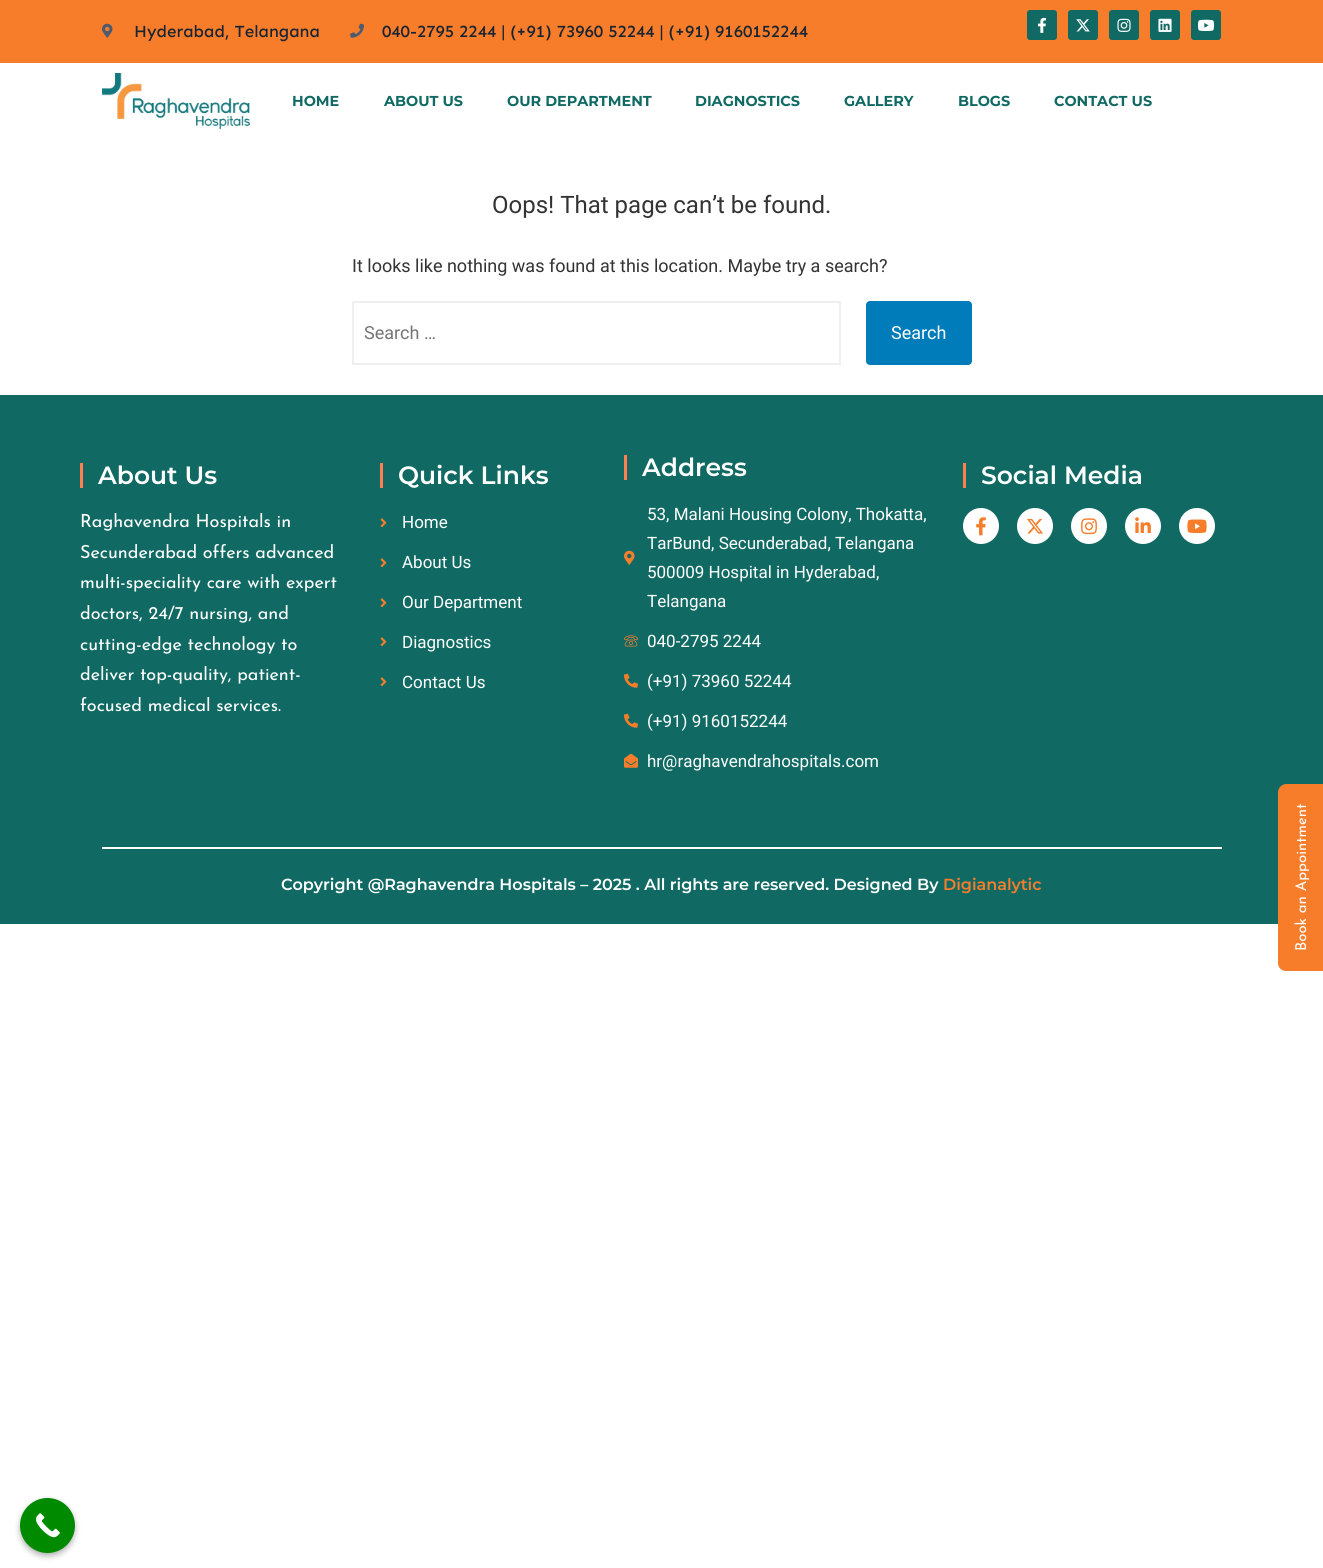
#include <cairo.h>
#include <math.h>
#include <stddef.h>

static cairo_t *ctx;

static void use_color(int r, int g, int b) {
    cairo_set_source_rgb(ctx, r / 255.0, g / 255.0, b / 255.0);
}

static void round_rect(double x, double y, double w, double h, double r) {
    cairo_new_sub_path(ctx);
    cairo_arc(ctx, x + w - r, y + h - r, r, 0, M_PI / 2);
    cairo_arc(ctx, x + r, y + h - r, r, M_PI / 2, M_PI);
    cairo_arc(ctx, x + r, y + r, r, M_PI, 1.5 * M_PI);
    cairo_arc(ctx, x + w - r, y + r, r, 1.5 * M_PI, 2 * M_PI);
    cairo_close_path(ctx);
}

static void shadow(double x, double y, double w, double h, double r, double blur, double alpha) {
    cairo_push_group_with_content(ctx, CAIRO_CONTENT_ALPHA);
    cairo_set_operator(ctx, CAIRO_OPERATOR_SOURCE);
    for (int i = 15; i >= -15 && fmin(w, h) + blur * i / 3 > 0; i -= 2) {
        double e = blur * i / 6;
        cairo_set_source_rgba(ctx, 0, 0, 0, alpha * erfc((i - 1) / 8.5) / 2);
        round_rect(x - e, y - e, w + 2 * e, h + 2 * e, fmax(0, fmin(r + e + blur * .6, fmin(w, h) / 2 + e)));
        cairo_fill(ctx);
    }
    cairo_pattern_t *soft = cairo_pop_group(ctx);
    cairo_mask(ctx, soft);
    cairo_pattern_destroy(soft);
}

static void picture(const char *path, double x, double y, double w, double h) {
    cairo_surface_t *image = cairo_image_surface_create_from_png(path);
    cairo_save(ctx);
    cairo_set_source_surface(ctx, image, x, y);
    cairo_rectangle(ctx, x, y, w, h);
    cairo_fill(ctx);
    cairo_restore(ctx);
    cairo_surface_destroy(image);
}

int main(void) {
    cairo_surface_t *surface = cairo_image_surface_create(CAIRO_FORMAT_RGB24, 1323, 1568);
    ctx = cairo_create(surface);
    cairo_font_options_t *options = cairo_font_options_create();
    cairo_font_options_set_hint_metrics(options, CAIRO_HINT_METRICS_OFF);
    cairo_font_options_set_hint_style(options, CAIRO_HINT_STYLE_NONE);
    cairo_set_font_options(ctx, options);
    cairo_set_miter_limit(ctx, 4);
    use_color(255, 255, 255);
    cairo_paint(ctx);
    use_color(247, 125, 43);
    cairo_rectangle(ctx, 0, 0, 1323, 63);
    cairo_fill(ctx);
    picture("img1.png", 102, 23, 11, 15);
    cairo_select_font_face(ctx, "Sen Medium", CAIRO_FONT_SLANT_NORMAL, CAIRO_FONT_WEIGHT_NORMAL);
    cairo_set_font_size(ctx, 17);
    use_color(25, 36, 49);
    cairo_move_to(ctx, 134, 37);
    cairo_show_text(ctx, "Hyderabad, Telangana");
    picture("img2.png", 350, 23, 14, 15);
    cairo_move_to(ctx, 382, 37);
    cairo_show_text(ctx, "040-2795 2244 | (+91) 73960 52244 | (+91) 9160152244");
    use_color(16, 106, 99);
    round_rect(1027, 10, 30, 30, 3);
    cairo_fill(ctx);
    picture("img3.png", 1038, 17, 8, 16);
    round_rect(1068, 10, 30, 30, 3);
    cairo_fill(ctx);
    picture("img4.png", 1076, 19, 14, 13);
    round_rect(1109, 10, 30, 30, 3);
    cairo_fill(ctx);
    picture("img5.png", 1117, 18, 14, 14);
    round_rect(1150, 10, 30, 30, 3);
    cairo_fill(ctx);
    picture("img6.png", 1158, 18, 14, 14);
    round_rect(1191, 10, 30, 30, 3);
    cairo_fill(ctx);
    picture("img7.png", 1198, 19, 16, 12);
    picture("img8.png", 102, 73, 148, 56);
    cairo_select_font_face(ctx, "Montserrat", CAIRO_FONT_SLANT_NORMAL, CAIRO_FONT_WEIGHT_BOLD);
    cairo_set_font_size(ctx, 14.4);
    cairo_move_to(ctx, 292, 106);
    cairo_show_text(ctx, "HOME");
    cairo_move_to(ctx, 384, 106);
    cairo_show_text(ctx, "ABOUT US");
    cairo_move_to(ctx, 507, 106);
    cairo_show_text(ctx, "OUR DEPARTMENT");
    cairo_move_to(ctx, 695, 106);
    cairo_show_text(ctx, "DIAGNOSTICS");
    cairo_move_to(ctx, 844, 106);
    cairo_show_text(ctx, "GALLERY");
    cairo_move_to(ctx, 958, 106);
    cairo_show_text(ctx, "BLOGS");
    cairo_move_to(ctx, 1054, 106);
    cairo_show_text(ctx, "CONTACT US");
    cairo_rectangle(ctx, 0, 395, 1323, 440);
    cairo_fill(ctx);
    use_color(247, 125, 43);
    cairo_new_path(ctx);
    cairo_move_to(ctx, 1278, 963);
    cairo_line_to(ctx, 1278, 792);
    cairo_curve_to(ctx, 1278, 788, 1282, 784, 1286, 784);
    cairo_line_to(ctx, 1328, 784);
    cairo_line_to(ctx, 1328, 971);
    cairo_line_to(ctx, 1286, 971);
    cairo_curve_to(ctx, 1282, 971, 1278, 968, 1278, 963);
    cairo_close_path(ctx);
    cairo_fill(ctx);
    cairo_select_font_face(ctx, "Josefin Sans Thin", CAIRO_FONT_SLANT_NORMAL, CAIRO_FONT_WEIGHT_NORMAL);
    cairo_set_font_size(ctx, 15);
    use_color(255, 255, 255);
    cairo_save(ctx);
    cairo_translate(ctx, 1306, 951);
    cairo_rotate(ctx, -90 * M_PI / 180);
    cairo_move_to(ctx, 0, 0);
    cairo_show_text(ctx, "Book an Appointment");
    cairo_restore(ctx);
    cairo_select_font_face(ctx, "Roboto", CAIRO_FONT_SLANT_NORMAL, CAIRO_FONT_WEIGHT_NORMAL);
    cairo_set_font_size(ctx, 24);
    use_color(51, 51, 51);
    cairo_move_to(ctx, 492, 213);
    cairo_show_text(ctx, "Oops! That page can’t be found.");
    cairo_set_font_size(ctx, 18);
    cairo_move_to(ctx, 352, 272);
    cairo_show_text(ctx, "It looks like nothing was found at this location. Maybe try a search?");
    cairo_rectangle(ctx, 353, 302, 487, 62);
    use_color(239, 239, 239);
    cairo_stroke(ctx);
    use_color(117, 117, 117);
    cairo_move_to(ctx, 364, 339);
    cairo_show_text(ctx, "Search …");
    use_color(0, 124, 186);
    round_rect(866, 301, 106, 64, 4);
    cairo_fill(ctx);
    use_color(255, 255, 255);
    cairo_move_to(ctx, 891, 339);
    cairo_show_text(ctx, "Search");
    use_color(255, 127, 80);
    cairo_rectangle(ctx, 80, 463, 3, 25);
    cairo_fill(ctx);
    cairo_select_font_face(ctx, "Montserrat SemiBold", CAIRO_FONT_SLANT_NORMAL, CAIRO_FONT_WEIGHT_NORMAL);
    cairo_set_font_size(ctx, 25);
    use_color(255, 255, 255);
    cairo_move_to(ctx, 98, 484);
    cairo_show_text(ctx, "About Us");
    cairo_select_font_face(ctx, "Josefin Sans Thin", CAIRO_FONT_SLANT_NORMAL, CAIRO_FONT_WEIGHT_NORMAL);
    cairo_set_font_size(ctx, 18);
    cairo_move_to(ctx, 80, 527);
    cairo_show_text(ctx, "Raghavendra Hospitals in");
    cairo_move_to(ctx, 80, 558);
    cairo_show_text(ctx, "Secunderabad offers advanced");
    cairo_move_to(ctx, 80, 588);
    cairo_show_text(ctx, "multi-speciality care with expert");
    cairo_move_to(ctx, 80, 619);
    cairo_show_text(ctx, "doctors, 24/7 nursing, and");
    cairo_move_to(ctx, 80, 650);
    cairo_show_text(ctx, "cutting-edge technology to");
    cairo_move_to(ctx, 80, 680);
    cairo_show_text(ctx, "deliver top-quality, patient-");
    cairo_move_to(ctx, 80, 711);
    cairo_show_text(ctx, "focused medical services.");
    use_color(255, 127, 80);
    cairo_rectangle(ctx, 380, 463, 3, 25);
    cairo_fill(ctx);
    cairo_select_font_face(ctx, "Montserrat SemiBold", CAIRO_FONT_SLANT_NORMAL, CAIRO_FONT_WEIGHT_NORMAL);
    cairo_set_font_size(ctx, 25);
    use_color(255, 255, 255);
    cairo_move_to(ctx, 398, 484);
    cairo_show_text(ctx, "Quick Links");
    picture("img9.png", 380, 518, 7, 10);
    cairo_select_font_face(ctx, "Roboto", CAIRO_FONT_SLANT_NORMAL, CAIRO_FONT_WEIGHT_NORMAL);
    cairo_set_font_size(ctx, 17);
    cairo_move_to(ctx, 402, 528);
    cairo_show_text(ctx, "Home");
    picture("img9.png", 380, 558, 7, 10);
    cairo_move_to(ctx, 402, 568);
    cairo_show_text(ctx, "About Us");
    picture("img9.png", 380, 598, 7, 10);
    cairo_move_to(ctx, 402, 608);
    cairo_show_text(ctx, "Our Department");
    picture("img9.png", 380, 637, 7, 10);
    cairo_move_to(ctx, 402, 648);
    cairo_show_text(ctx, "Diagnostics");
    picture("img9.png", 380, 677, 7, 10);
    cairo_move_to(ctx, 402, 688);
    cairo_show_text(ctx, "Contact Us");
    use_color(255, 127, 80);
    cairo_rectangle(ctx, 624, 455, 3, 25);
    cairo_fill(ctx);
    cairo_select_font_face(ctx, "Montserrat SemiBold", CAIRO_FONT_SLANT_NORMAL, CAIRO_FONT_WEIGHT_NORMAL);
    cairo_set_font_size(ctx, 25);
    use_color(255, 255, 255);
    cairo_move_to(ctx, 642, 476);
    cairo_show_text(ctx, "Address");
    picture("img10.png", 624, 550, 11, 15);
    cairo_select_font_face(ctx, "Roboto", CAIRO_FONT_SLANT_NORMAL, CAIRO_FONT_WEIGHT_NORMAL);
    cairo_set_font_size(ctx, 17);
    cairo_move_to(ctx, 647, 520);
    cairo_show_text(ctx, "53, Malani Housing Colony, Thokatta,");
    cairo_move_to(ctx, 647, 549);
    cairo_show_text(ctx, "TarBund, Secunderabad, Telangana");
    cairo_move_to(ctx, 647, 578);
    cairo_show_text(ctx, "500009 Hospital in Hyderabad,");
    cairo_move_to(ctx, 647, 607);
    cairo_show_text(ctx, "Telangana");
    picture("img11.png", 624, 635, 14, 12);
    cairo_move_to(ctx, 647, 647);
    cairo_show_text(ctx, "040-2795 2244");
    picture("img12.png", 624, 673, 14, 15);
    cairo_move_to(ctx, 647, 687);
    cairo_show_text(ctx, "(+91) 73960 52244");
    picture("img12.png", 624, 713, 14, 15);
    cairo_move_to(ctx, 647, 727);
    cairo_show_text(ctx, "(+91) 9160152244");
    picture("img13.png", 624, 753, 14, 15);
    cairo_move_to(ctx, 647, 767);
    cairo_show_text(ctx, "hr@raghavendrahospitals.com");
    use_color(255, 127, 80);
    cairo_rectangle(ctx, 963, 463, 3, 25);
    cairo_fill(ctx);
    cairo_select_font_face(ctx, "Montserrat SemiBold", CAIRO_FONT_SLANT_NORMAL, CAIRO_FONT_WEIGHT_NORMAL);
    cairo_set_font_size(ctx, 25);
    use_color(255, 255, 255);
    cairo_move_to(ctx, 981, 484);
    cairo_show_text(ctx, "Social Media");
    cairo_new_path(ctx);
    cairo_arc(ctx, 981, 526, 18, 0, 2 * M_PI);
    cairo_fill(ctx);
    picture("img14.png", 976, 517, 10, 19);
    cairo_arc(ctx, 1035, 526, 18, 0, 2 * M_PI);
    cairo_fill(ctx);
    picture("img15.png", 1027, 518, 16, 16);
    cairo_arc(ctx, 1089, 526, 18, 0, 2 * M_PI);
    cairo_fill(ctx);
    picture("img16.png", 1081, 518, 16, 17);
    cairo_arc(ctx, 1143, 526, 18, 0, 2 * M_PI);
    cairo_fill(ctx);
    picture("img17.png", 1135, 517, 16, 16);
    cairo_arc(ctx, 1197, 526, 18, 0, 2 * M_PI);
    cairo_fill(ctx);
    picture("img18.png", 1187, 519, 20, 14);
    use_color(16, 106, 99);
    cairo_rectangle(ctx, 0, 835, 1278, 89);
    cairo_fill(ctx);
    use_color(255, 255, 255);
    cairo_rectangle(ctx, 102, 847, 1120, 2);
    cairo_fill(ctx);
    cairo_set_font_size(ctx, 16);
    cairo_move_to(ctx, 281, 890);
    cairo_show_text(ctx, "Copyright @Raghavendra Hospitals – 2025 . All rights are reserved. Designed By");
    use_color(247, 125, 43);
    cairo_move_to(ctx, 943, 890);
    cairo_show_text(ctx, "Digianalytic");
    use_color(0, 0, 0);
    shadow(20, 1501, 55, 55, 27.5, 3, 0.3);
    use_color(0, 138, 0);
    cairo_arc(ctx, 47.5, 1525.5, 27.5, 0, 2 * M_PI);
    cairo_fill(ctx);
    picture("img19.png", 35, 1513, 25, 25);
    cairo_surface_write_to_png(surface, "result.png");
    cairo_font_options_destroy(options);
    cairo_destroy(ctx);
    cairo_surface_destroy(surface);
    return 0;
}
